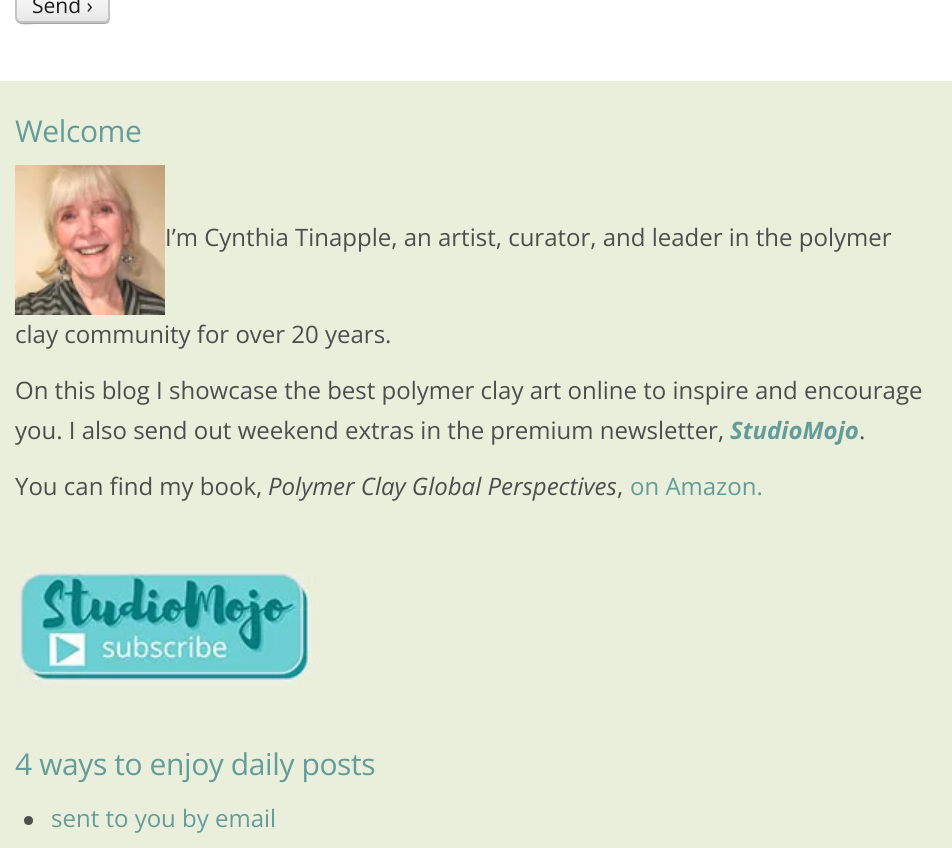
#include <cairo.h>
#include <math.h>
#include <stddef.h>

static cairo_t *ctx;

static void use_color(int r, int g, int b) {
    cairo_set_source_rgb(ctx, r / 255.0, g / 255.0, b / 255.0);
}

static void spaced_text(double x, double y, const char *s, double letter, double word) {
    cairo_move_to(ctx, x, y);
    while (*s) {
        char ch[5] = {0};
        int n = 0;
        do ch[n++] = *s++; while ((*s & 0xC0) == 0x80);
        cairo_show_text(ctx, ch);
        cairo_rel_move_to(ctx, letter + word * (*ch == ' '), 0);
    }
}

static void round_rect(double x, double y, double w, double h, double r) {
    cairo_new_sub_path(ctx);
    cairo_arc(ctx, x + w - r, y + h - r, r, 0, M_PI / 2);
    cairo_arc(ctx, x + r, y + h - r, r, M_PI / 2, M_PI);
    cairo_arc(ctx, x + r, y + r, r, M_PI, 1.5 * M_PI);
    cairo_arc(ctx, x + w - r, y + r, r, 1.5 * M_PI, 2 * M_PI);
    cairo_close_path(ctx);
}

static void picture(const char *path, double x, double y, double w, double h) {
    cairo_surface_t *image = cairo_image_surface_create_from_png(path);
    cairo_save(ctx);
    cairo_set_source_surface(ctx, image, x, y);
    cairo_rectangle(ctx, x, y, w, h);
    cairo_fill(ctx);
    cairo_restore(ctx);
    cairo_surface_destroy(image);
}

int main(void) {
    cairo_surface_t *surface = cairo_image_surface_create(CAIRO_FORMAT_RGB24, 952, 848);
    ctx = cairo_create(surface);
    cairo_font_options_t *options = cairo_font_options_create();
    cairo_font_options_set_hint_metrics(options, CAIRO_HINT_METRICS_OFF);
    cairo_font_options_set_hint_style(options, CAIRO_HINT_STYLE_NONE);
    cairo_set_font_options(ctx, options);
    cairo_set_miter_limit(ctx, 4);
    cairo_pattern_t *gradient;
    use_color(255, 255, 255);
    cairo_paint(ctx);
    use_color(166, 166, 166);
    cairo_new_path(ctx);
    cairo_move_to(ctx, 15, 16);
    cairo_curve_to(ctx, 15, 27, 27, 24, 35, 24);
    cairo_line_to(ctx, 104, 24);
    cairo_curve_to(ctx, 112, 24, 110, 15, 110, 10);
    cairo_line_to(ctx, 109, -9);
    cairo_line_to(ctx, 109, 18);
    cairo_curve_to(ctx, 108, 26, 93, 22, 90, 22);
    cairo_line_to(ctx, 21, 22);
    cairo_curve_to(ctx, 18, 22, 16, 20, 15, 18);
    cairo_close_path(ctx);
    cairo_fill(ctx);
    cairo_save(ctx);
    round_rect(15, -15, 95, 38, 6);
    cairo_clip(ctx);
    gradient = cairo_pattern_create_linear(62, -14, 62, 21);
    cairo_pattern_add_color_stop_rgba(gradient, 0, 1, 1, 1, 1);
    cairo_pattern_add_color_stop_rgba(gradient, 1, 0.906, 0.906, 0.906, 1);
    cairo_set_source(ctx, gradient);
    cairo_pattern_destroy(gradient);
    cairo_rectangle(ctx, 15, 0, 95, 21);
    cairo_fill(ctx);
    cairo_restore(ctx);
    round_rect(16, -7, 93, 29, 5);
    use_color(196, 196, 196);
    cairo_stroke(ctx);
    cairo_select_font_face(ctx, "Open Sans", CAIRO_FONT_SLANT_NORMAL, CAIRO_FONT_WEIGHT_NORMAL);
    cairo_set_font_size(ctx, 21);
    use_color(27, 27, 27);
    cairo_move_to(ctx, 32, 13);
    cairo_show_text(ctx, "Send ›");
    use_color(234, 239, 219);
    cairo_rectangle(ctx, 0, 81, 952, 767);
    cairo_fill(ctx);
    cairo_set_font_size(ctx, 30);
    use_color(100, 156, 154);
    spaced_text(15, 142, "Welcome", -0.4, 0);
    picture("img1.png", 15, 165, 150, 150);
    cairo_set_font_size(ctx, 24);
    use_color(78, 78, 78);
    cairo_move_to(ctx, 165, 246);
    cairo_show_text(ctx, "I’m Cynthia Tinapple, an artist, curator, and leader in the polymer");
    cairo_move_to(ctx, 15, 343);
    cairo_show_text(ctx, "clay community for over 20 years.");
    cairo_move_to(ctx, 15, 399);
    cairo_show_text(ctx, "On this blog I showcase the best polymer clay art online to inspire and encourage");
    cairo_move_to(ctx, 15, 439);
    cairo_show_text(ctx, "you. I also send out weekend extras in the premium newsletter,");
    cairo_select_font_face(ctx, "Open Sans", CAIRO_FONT_SLANT_ITALIC, CAIRO_FONT_WEIGHT_BOLD);
    use_color(100, 156, 154);
    cairo_move_to(ctx, 730, 439);
    cairo_show_text(ctx, "StudioMojo");
    cairo_select_font_face(ctx, "Open Sans", CAIRO_FONT_SLANT_NORMAL, CAIRO_FONT_WEIGHT_NORMAL);
    use_color(78, 78, 78);
    cairo_move_to(ctx, 859, 439);
    cairo_show_text(ctx, ".");
    cairo_move_to(ctx, 15, 495);
    cairo_show_text(ctx, "You can find my book,");
    cairo_select_font_face(ctx, "Open Sans", CAIRO_FONT_SLANT_ITALIC, CAIRO_FONT_WEIGHT_NORMAL);
    cairo_move_to(ctx, 268, 495);
    cairo_show_text(ctx, "Polymer Clay Global Perspectives");
    cairo_select_font_face(ctx, "Open Sans", CAIRO_FONT_SLANT_NORMAL, CAIRO_FONT_WEIGHT_NORMAL);
    cairo_move_to(ctx, 617, 495);
    cairo_show_text(ctx, ",");
    use_color(100, 156, 154);
    cairo_move_to(ctx, 630, 495);
    cairo_show_text(ctx, "on Amazon.");
    picture("img2.png", 15, 567, 300, 119);
    cairo_set_font_size(ctx, 30);
    spaced_text(15, 775, "4 ways to enjoy daily posts", -0.4, 0);
    use_color(78, 78, 78);
    cairo_new_path(ctx);
    cairo_arc(ctx, 28.5, 820.5, 4.5, 0, 2 * M_PI);
    cairo_fill(ctx);
    cairo_set_font_size(ctx, 24);
    use_color(100, 156, 154);
    cairo_move_to(ctx, 51, 827);
    cairo_show_text(ctx, "sent to you by email");
    cairo_surface_write_to_png(surface, "result.png");
    cairo_font_options_destroy(options);
    cairo_destroy(ctx);
    cairo_surface_destroy(surface);
    return 0;
}
